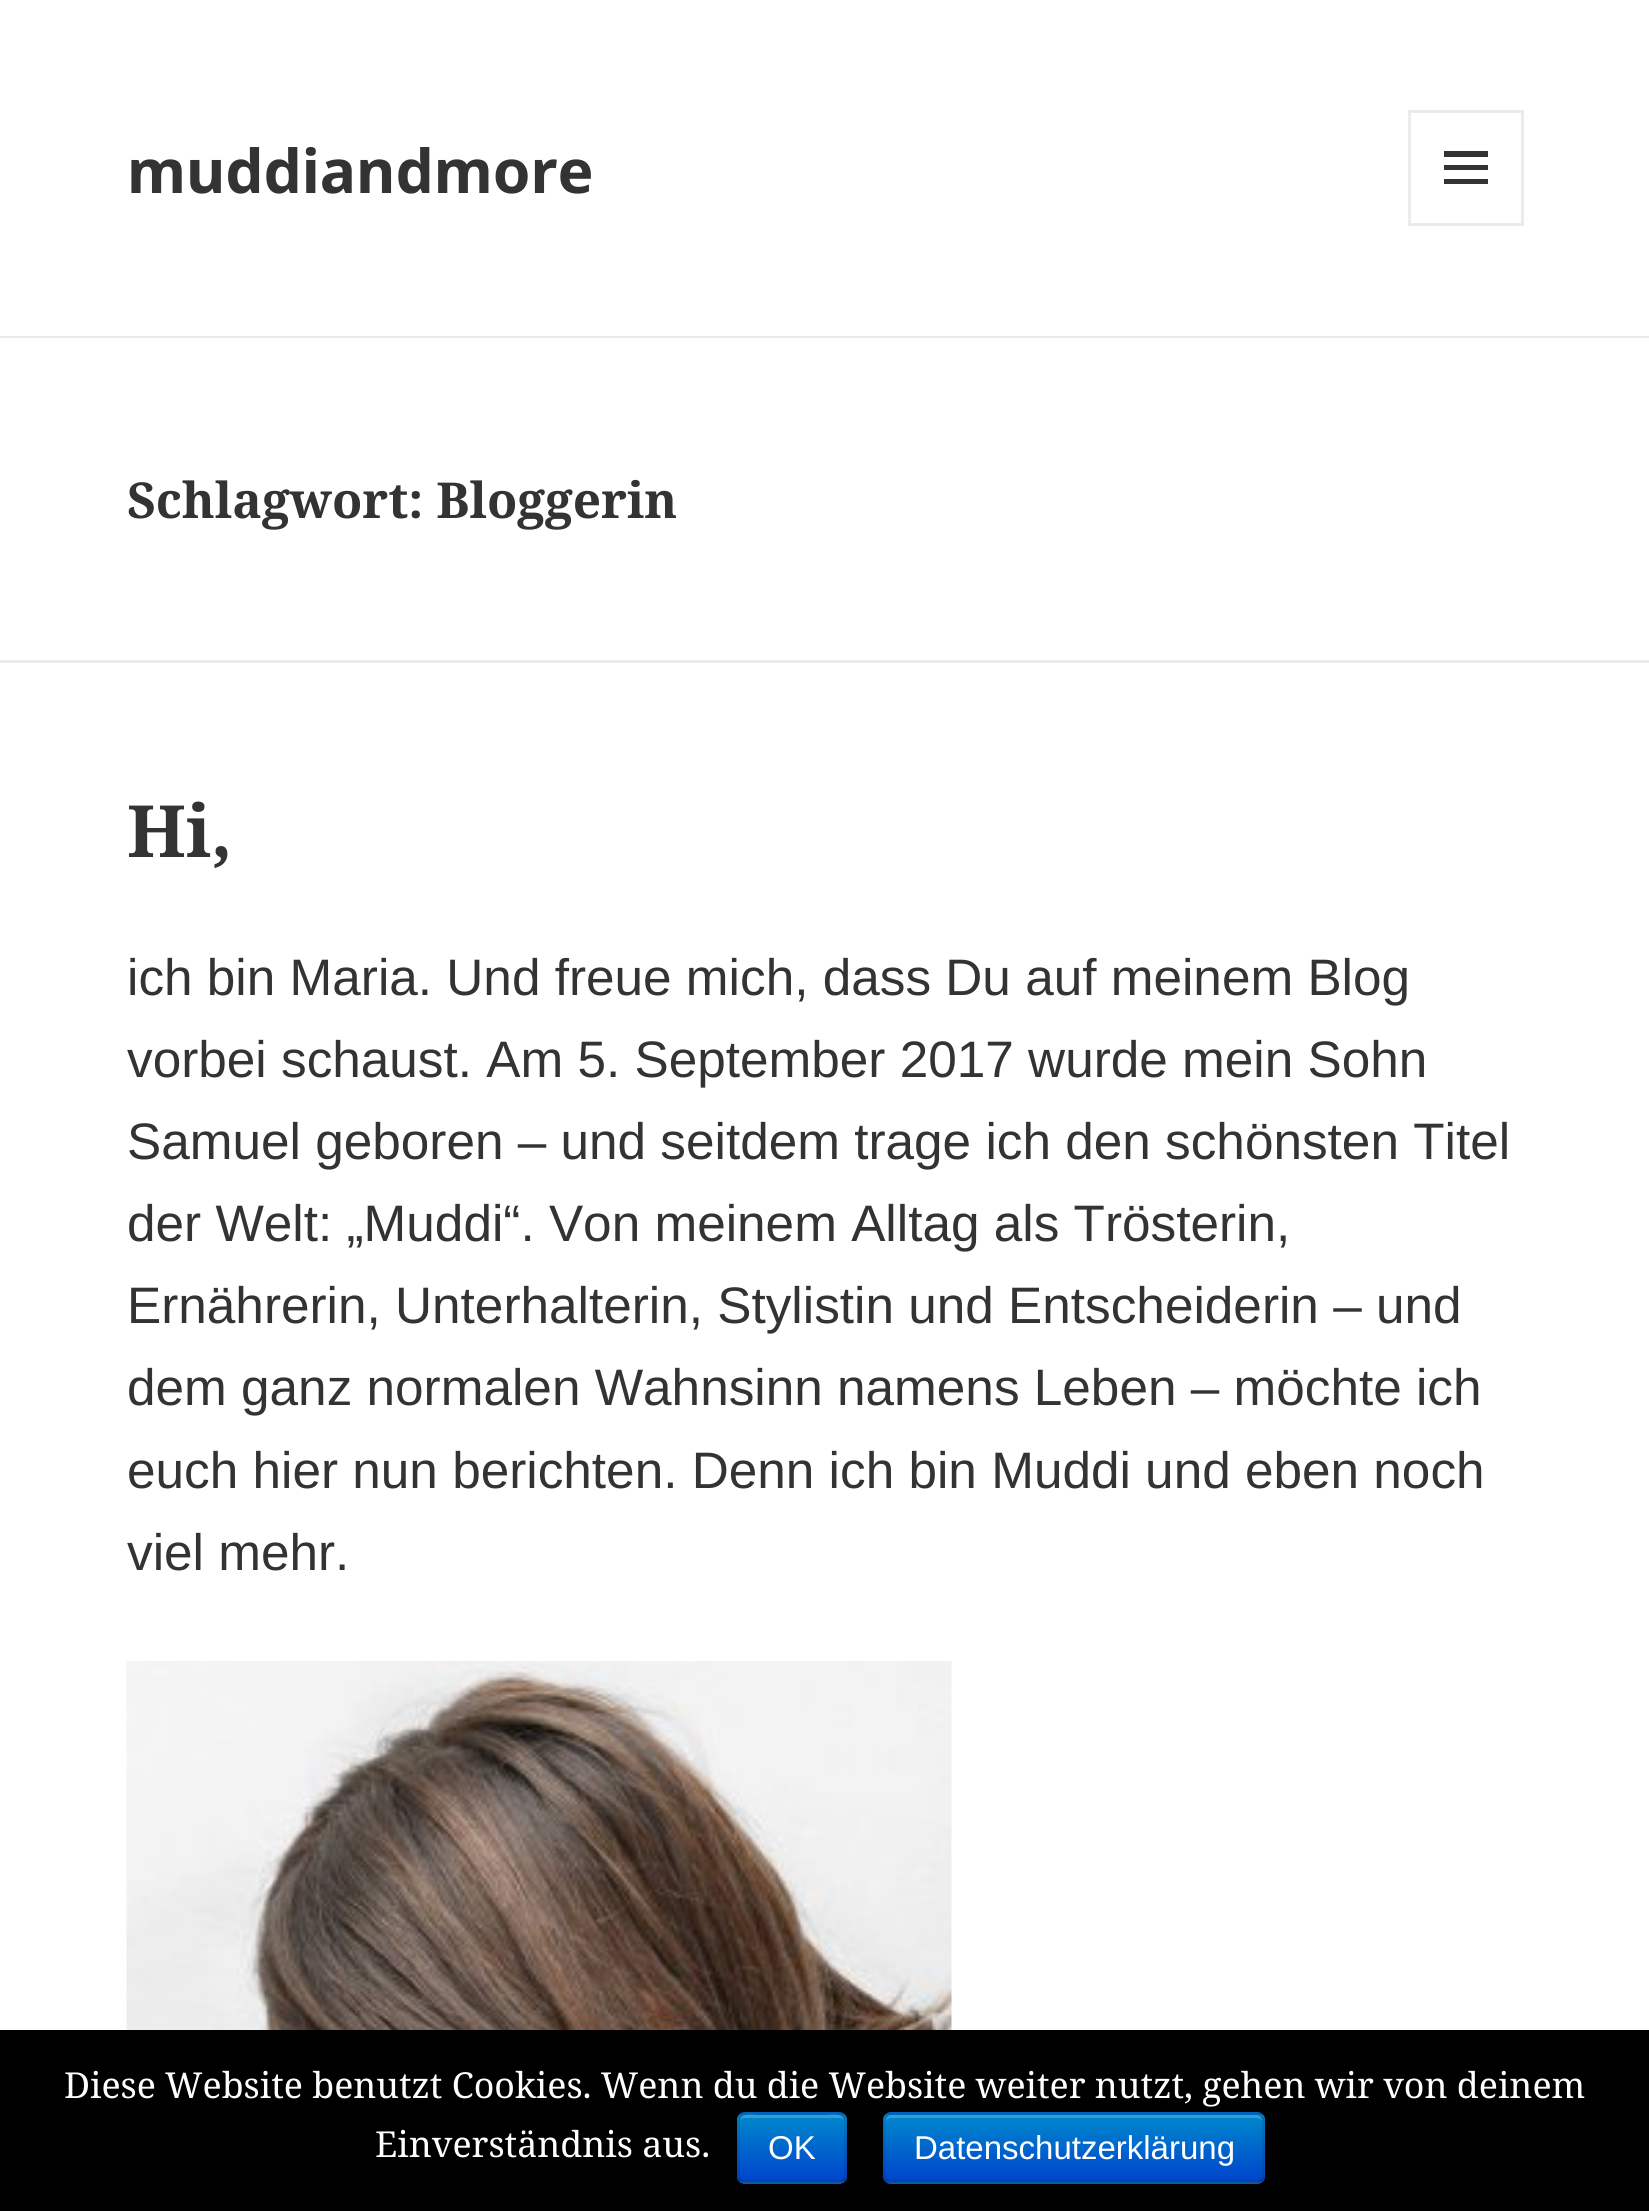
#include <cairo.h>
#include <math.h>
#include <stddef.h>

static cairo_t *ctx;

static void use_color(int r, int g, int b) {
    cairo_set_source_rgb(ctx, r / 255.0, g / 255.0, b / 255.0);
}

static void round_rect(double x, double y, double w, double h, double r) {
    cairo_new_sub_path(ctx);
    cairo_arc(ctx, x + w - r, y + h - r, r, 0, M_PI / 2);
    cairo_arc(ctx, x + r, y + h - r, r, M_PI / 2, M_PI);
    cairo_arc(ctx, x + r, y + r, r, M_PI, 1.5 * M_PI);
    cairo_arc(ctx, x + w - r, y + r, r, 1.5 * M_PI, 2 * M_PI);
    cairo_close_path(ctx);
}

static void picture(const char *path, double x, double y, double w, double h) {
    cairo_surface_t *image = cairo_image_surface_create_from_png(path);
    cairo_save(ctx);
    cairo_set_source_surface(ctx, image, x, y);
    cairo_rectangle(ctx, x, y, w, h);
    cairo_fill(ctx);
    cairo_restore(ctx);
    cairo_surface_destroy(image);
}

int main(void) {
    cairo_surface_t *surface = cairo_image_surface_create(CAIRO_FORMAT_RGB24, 1649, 2211);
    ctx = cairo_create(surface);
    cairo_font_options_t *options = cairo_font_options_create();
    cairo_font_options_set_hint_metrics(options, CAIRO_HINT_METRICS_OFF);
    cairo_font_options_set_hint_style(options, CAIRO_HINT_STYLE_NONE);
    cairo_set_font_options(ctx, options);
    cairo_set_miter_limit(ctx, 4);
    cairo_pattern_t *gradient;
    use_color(255, 255, 255);
    cairo_paint(ctx);
    use_color(235, 235, 235);
    cairo_rectangle(ctx, 0, 336, 1649, 2);
    cairo_fill(ctx);
    cairo_select_font_face(ctx, "Noto Sans", CAIRO_FONT_SLANT_NORMAL, CAIRO_FONT_WEIGHT_BOLD);
    cairo_set_font_size(ctx, 60.5);
    use_color(51, 51, 51);
    cairo_move_to(ctx, 127, 193);
    cairo_show_text(ctx, "muddiandmore");
    cairo_rectangle(ctx, 1409.5, 111.5, 113, 113);
    use_color(235, 235, 235);
    cairo_set_line_width(ctx, 3);
    cairo_stroke(ctx);
    use_color(51, 51, 51);
    cairo_new_path(ctx);
    cairo_move_to(ctx, 1444, 184);
    cairo_line_to(ctx, 1444, 179);
    cairo_line_to(ctx, 1488, 179);
    cairo_line_to(ctx, 1488, 184);
    cairo_close_path(ctx);
    cairo_move_to(ctx, 1444, 151);
    cairo_line_to(ctx, 1488, 151);
    cairo_line_to(ctx, 1488, 157);
    cairo_line_to(ctx, 1444, 157);
    cairo_close_path(ctx);
    cairo_move_to(ctx, 1444, 170);
    cairo_line_to(ctx, 1444, 165);
    cairo_line_to(ctx, 1488, 165);
    cairo_line_to(ctx, 1488, 170);
    cairo_close_path(ctx);
    cairo_fill(ctx);
    use_color(235, 235, 235);
    cairo_rectangle(ctx, 0, 660, 1649, 3);
    cairo_fill(ctx);
    cairo_select_font_face(ctx, "Noto Serif", CAIRO_FONT_SLANT_NORMAL, CAIRO_FONT_WEIGHT_BOLD);
    cairo_set_font_size(ctx, 49.5);
    use_color(51, 51, 51);
    cairo_move_to(ctx, 127, 518);
    cairo_show_text(ctx, "Schlagwort: Bloggerin");
    cairo_set_font_size(ctx, 72);
    cairo_move_to(ctx, 127, 857);
    cairo_show_text(ctx, "Hi,");
    cairo_select_font_face(ctx, "Liberation Sans", CAIRO_FONT_SLANT_NORMAL, CAIRO_FONT_WEIGHT_NORMAL);
    cairo_set_font_size(ctx, 51.3);
    cairo_move_to(ctx, 127, 995);
    cairo_show_text(ctx, "ich bin Maria. Und freue mich, dass Du auf meinem Blog");
    cairo_move_to(ctx, 127, 1077);
    cairo_show_text(ctx, "vorbei schaust. Am 5. September 2017 wurde mein Sohn");
    cairo_move_to(ctx, 127, 1159);
    cairo_show_text(ctx, "Samuel geboren – und seitdem trage ich den schönsten Titel");
    cairo_move_to(ctx, 127, 1241);
    cairo_show_text(ctx, "der Welt: „Muddi“. Von meinem Alltag als Trösterin,");
    cairo_move_to(ctx, 127, 1323);
    cairo_show_text(ctx, "Ernährerin, Unterhalterin, Stylistin und Entscheiderin – und");
    cairo_move_to(ctx, 127, 1405);
    cairo_show_text(ctx, "dem ganz normalen Wahnsinn namens Leben – möchte ich");
    cairo_move_to(ctx, 127, 1488);
    cairo_show_text(ctx, "euch hier nun berichten. Denn i");
    cairo_move_to(ctx, 840, 1488);
    cairo_show_text(ctx, "ch bin Muddi und eben noch");
    cairo_move_to(ctx, 127, 1570);
    cairo_show_text(ctx, "viel mehr.");
    picture("img1.png", 126, 1661, 826, 369);
    use_color(0, 0, 0);
    cairo_rectangle(ctx, 0, 2030, 1649, 181);
    cairo_fill(ctx);
    cairo_select_font_face(ctx, "Noto Serif", CAIRO_FONT_SLANT_NORMAL, CAIRO_FONT_WEIGHT_NORMAL);
    cairo_set_font_size(ctx, 35.75);
    use_color(255, 255, 255);
    cairo_move_to(ctx, 64, 2098);
    cairo_show_text(ctx, "Diese Website benutzt Cookies. Wenn du die Website weiter nutzt, gehen wir von deinem");
    cairo_move_to(ctx, 375, 2157);
    cairo_show_text(ctx, "Einverständnis aus.");
    use_color(0, 109, 204);
    round_rect(737, 2112, 110, 72, 8);
    cairo_fill(ctx);
    cairo_save(ctx);
    round_rect(737, 2112, 110, 72, 8);
    cairo_clip(ctx);
    gradient = cairo_pattern_create_linear(792, 2115, 792, 2181);
    cairo_pattern_add_color_stop_rgba(gradient, 0, 0, 0.533, 0.8, 1);
    cairo_pattern_add_color_stop_rgba(gradient, 1, 0, 0.267, 0.8, 1);
    cairo_set_source(ctx, gradient);
    cairo_pattern_destroy(gradient);
    cairo_rectangle(ctx, 737, 2115, 110, 66);
    cairo_fill(ctx);
    cairo_restore(ctx);
    cairo_set_source_rgba(ctx, 1, 1, 1, 0.2);
    cairo_new_path(ctx);
    cairo_move_to(ctx, 745, 2118);
    cairo_line_to(ctx, 839, 2118);
    cairo_curve_to(ctx, 842, 2118, 844, 2120, 844, 2123);
    cairo_curve_to(ctx, 844, 2111, 832, 2115, 823, 2115);
    cairo_line_to(ctx, 761, 2115);
    cairo_curve_to(ctx, 752, 2115, 740, 2111, 740, 2123);
    cairo_curve_to(ctx, 740, 2120, 742, 2118, 745, 2118);
    cairo_close_path(ctx);
    cairo_fill(ctx);
    cairo_new_path(ctx);
    cairo_move_to(ctx, 843.5, 2180);
    cairo_curve_to(ctx, 842.5, 2181.5, 840.5, 2182, 839, 2182);
    cairo_line_to(ctx, 745, 2182);
    cairo_curve_to(ctx, 743.5, 2182, 741.5, 2181.5, 740.5, 2180);
    cairo_set_source_rgba(ctx, 0, 0, 0, 0.25);
    cairo_set_line_width(ctx, 2.8);
    cairo_stroke(ctx);
    cairo_new_path(ctx);
    cairo_move_to(ctx, 740.5, 2180);
    cairo_curve_to(ctx, 739, 2179, 738.5, 2177, 738.5, 2175);
    cairo_line_to(ctx, 738.5, 2120);
    cairo_curve_to(ctx, 738.5, 2118.5, 739, 2116.5, 740.5, 2115.5);
    cairo_curve_to(ctx, 741.5, 2114, 743.5, 2113.5, 745, 2113.5);
    cairo_line_to(ctx, 839, 2113.5);
    cairo_curve_to(ctx, 840.5, 2113.5, 842.5, 2114, 843.5, 2115.5);
    cairo_curve_to(ctx, 845, 2116.5, 845.5, 2118.5, 845.5, 2120);
    cairo_line_to(ctx, 845.5, 2175);
    cairo_curve_to(ctx, 845.5, 2177, 845, 2179, 843.5, 2180);
    cairo_set_source_rgba(ctx, 0, 0, 0, 0.1);
    cairo_stroke(ctx);
    cairo_select_font_face(ctx, "Liberation Sans", CAIRO_FONT_SLANT_NORMAL, CAIRO_FONT_WEIGHT_NORMAL);
    cairo_set_font_size(ctx, 33);
    use_color(255, 255, 255);
    cairo_move_to(ctx, 768, 2159);
    cairo_show_text(ctx, "OK");
    use_color(0, 109, 204);
    round_rect(883, 2112, 382, 72, 8);
    cairo_fill(ctx);
    cairo_save(ctx);
    round_rect(883, 2112, 382, 72, 8);
    cairo_clip(ctx);
    gradient = cairo_pattern_create_linear(1074, 2115, 1074, 2181);
    cairo_pattern_add_color_stop_rgba(gradient, 0, 0, 0.533, 0.8, 1);
    cairo_pattern_add_color_stop_rgba(gradient, 1, 0, 0.267, 0.8, 1);
    cairo_set_source(ctx, gradient);
    cairo_pattern_destroy(gradient);
    cairo_rectangle(ctx, 883, 2115, 382, 66);
    cairo_fill(ctx);
    cairo_restore(ctx);
    cairo_set_source_rgba(ctx, 1, 1, 1, 0.2);
    cairo_new_path(ctx);
    cairo_move_to(ctx, 891, 2118);
    cairo_line_to(ctx, 1257, 2118);
    cairo_curve_to(ctx, 1260, 2118, 1262, 2120, 1262, 2123);
    cairo_curve_to(ctx, 1262, 2119, 1261, 2115, 1256, 2115);
    cairo_line_to(ctx, 892, 2115);
    cairo_curve_to(ctx, 887, 2115, 886, 2119, 886, 2123);
    cairo_curve_to(ctx, 886, 2120, 888, 2118, 891, 2118);
    cairo_close_path(ctx);
    cairo_fill(ctx);
    cairo_new_path(ctx);
    cairo_move_to(ctx, 1261.5, 2180);
    cairo_curve_to(ctx, 1260.5, 2181.5, 1258.5, 2182, 1257, 2182);
    cairo_line_to(ctx, 891, 2182);
    cairo_curve_to(ctx, 889, 2182, 887.5, 2181.5, 886, 2180);
    cairo_set_source_rgba(ctx, 0, 0, 0, 0.25);
    cairo_stroke(ctx);
    cairo_new_path(ctx);
    cairo_move_to(ctx, 886, 2180);
    cairo_curve_to(ctx, 885, 2179, 884, 2177, 884, 2175);
    cairo_line_to(ctx, 884, 2120);
    cairo_curve_to(ctx, 884, 2118.5, 885, 2116.5, 886, 2115.5);
    cairo_curve_to(ctx, 887.5, 2114, 889, 2113.5, 891, 2113.5);
    cairo_line_to(ctx, 1257, 2113.5);
    cairo_curve_to(ctx, 1258.5, 2113.5, 1260.5, 2114, 1261.5, 2115.5);
    cairo_curve_to(ctx, 1263, 2116.5, 1263.5, 2118.5, 1263.5, 2120);
    cairo_line_to(ctx, 1263.5, 2175);
    cairo_curve_to(ctx, 1263.5, 2177, 1263, 2179, 1261.5, 2180);
    cairo_set_source_rgba(ctx, 0, 0, 0, 0.1);
    cairo_stroke(ctx);
    use_color(255, 255, 255);
    cairo_move_to(ctx, 914, 2159);
    cairo_show_text(ctx, "Datenschutzerklärung");
    cairo_surface_write_to_png(surface, "result.png");
    cairo_font_options_destroy(options);
    cairo_destroy(ctx);
    cairo_surface_destroy(surface);
    return 0;
}
